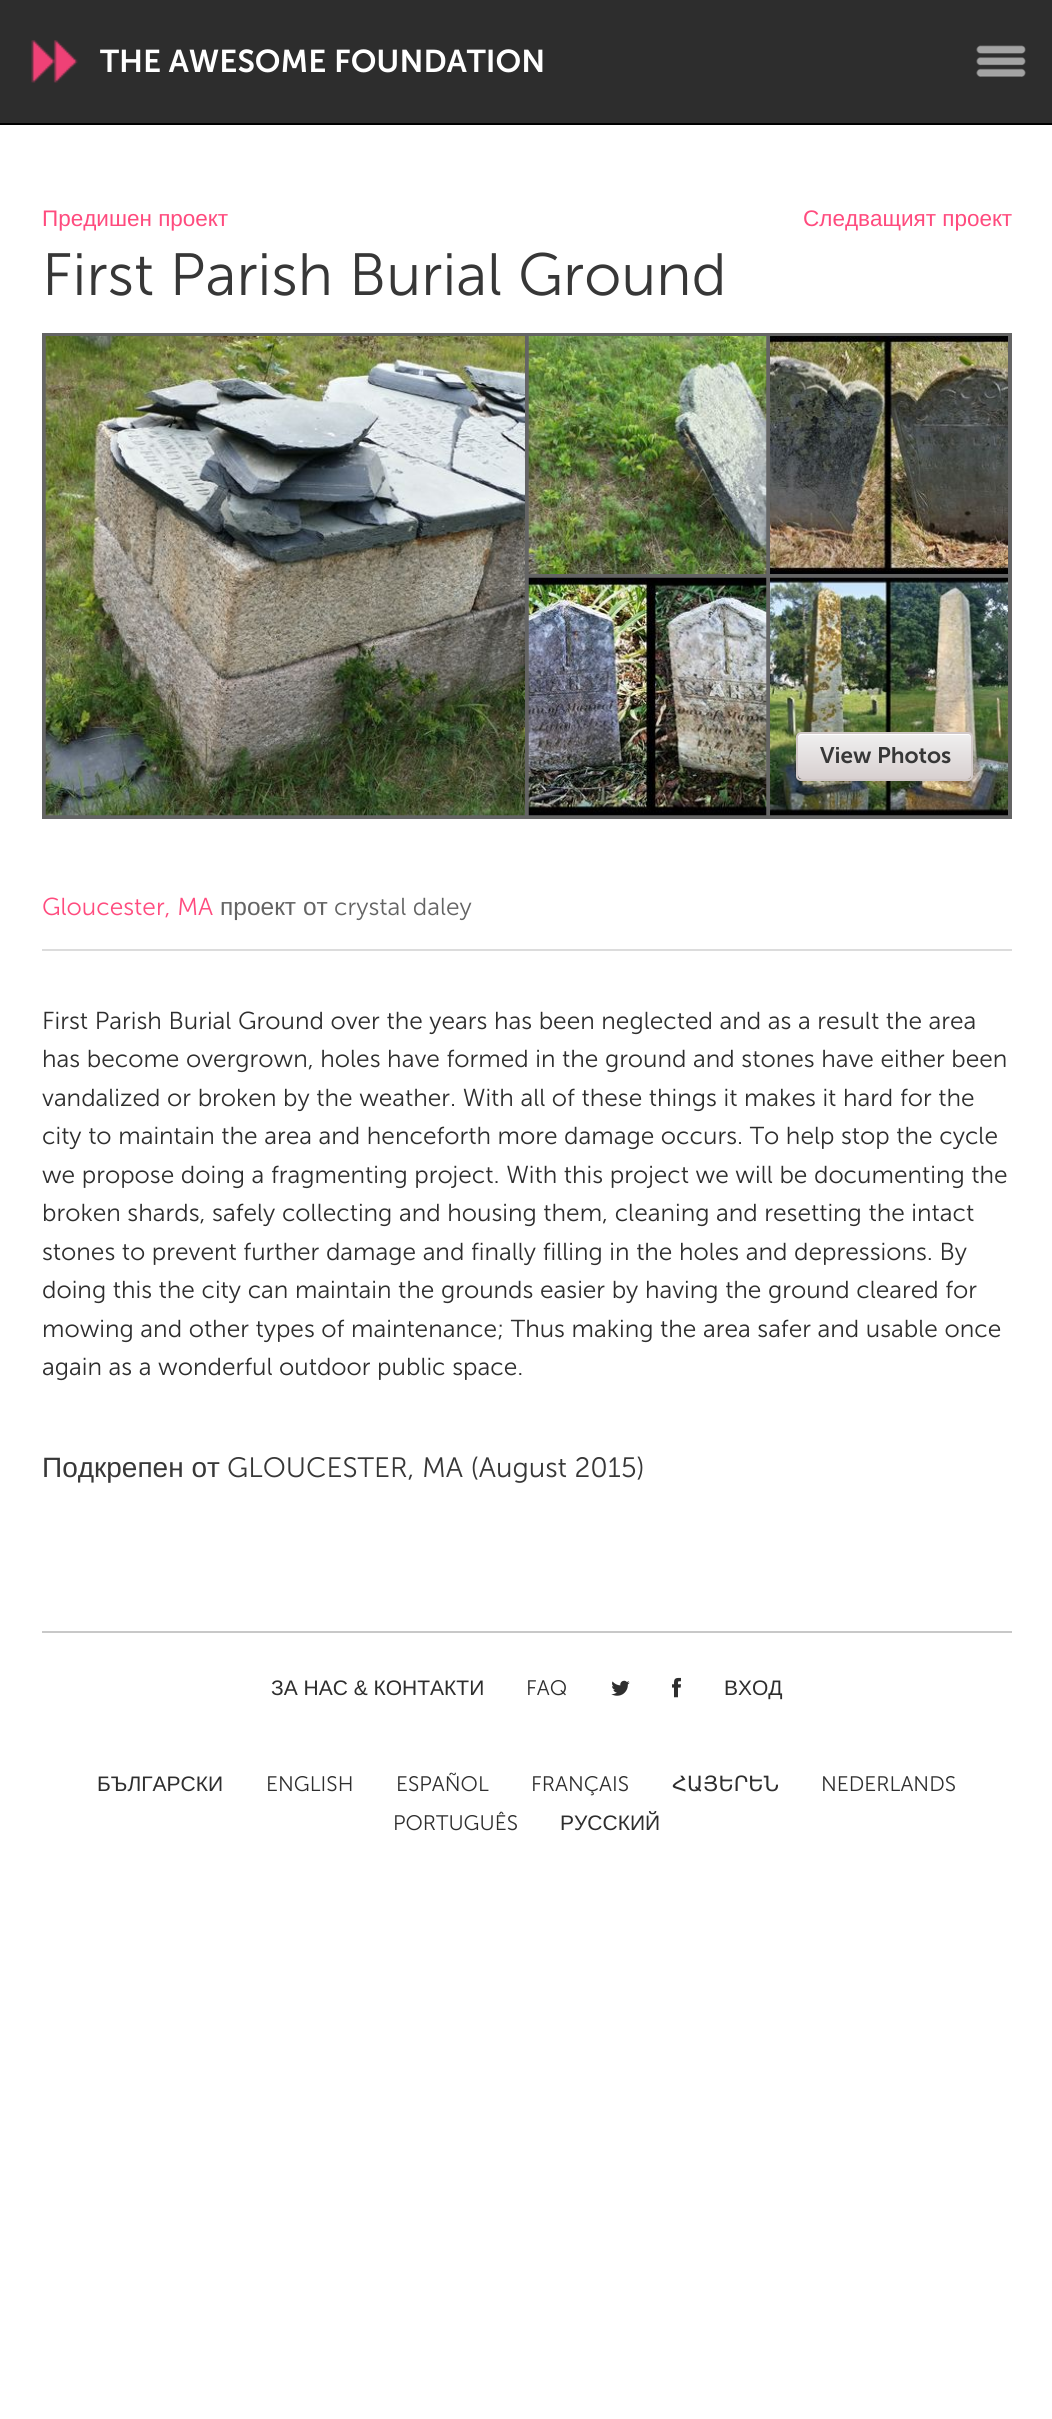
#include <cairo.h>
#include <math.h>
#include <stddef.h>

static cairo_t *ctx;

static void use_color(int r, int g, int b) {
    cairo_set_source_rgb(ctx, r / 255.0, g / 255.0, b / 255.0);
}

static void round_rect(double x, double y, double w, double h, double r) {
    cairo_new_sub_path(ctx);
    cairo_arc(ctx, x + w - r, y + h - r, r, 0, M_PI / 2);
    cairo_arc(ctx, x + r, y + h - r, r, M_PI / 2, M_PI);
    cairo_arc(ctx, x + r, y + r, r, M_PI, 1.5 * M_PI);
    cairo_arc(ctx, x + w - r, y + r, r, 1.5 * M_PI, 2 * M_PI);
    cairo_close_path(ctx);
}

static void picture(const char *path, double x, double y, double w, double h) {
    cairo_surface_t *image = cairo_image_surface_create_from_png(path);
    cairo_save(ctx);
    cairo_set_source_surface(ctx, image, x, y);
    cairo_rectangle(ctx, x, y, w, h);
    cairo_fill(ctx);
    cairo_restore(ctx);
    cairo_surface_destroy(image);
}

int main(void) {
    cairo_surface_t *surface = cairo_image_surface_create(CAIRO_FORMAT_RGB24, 1052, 2419);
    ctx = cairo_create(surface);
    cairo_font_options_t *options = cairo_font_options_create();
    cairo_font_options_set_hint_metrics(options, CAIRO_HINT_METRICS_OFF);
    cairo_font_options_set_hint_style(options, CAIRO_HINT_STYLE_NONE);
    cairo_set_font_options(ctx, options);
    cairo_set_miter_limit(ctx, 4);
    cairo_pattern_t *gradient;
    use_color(255, 255, 255);
    cairo_paint(ctx);
    use_color(45, 45, 45);
    cairo_rectangle(ctx, 0, 0, 1052, 123);
    cairo_fill(ctx);
    use_color(0, 0, 0);
    cairo_rectangle(ctx, 0, 123, 1052, 2);
    cairo_fill(ctx);
    picture("img1.png", 31, 40, 47, 43);
    cairo_select_font_face(ctx, "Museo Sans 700 SemiBold", CAIRO_FONT_SLANT_NORMAL, CAIRO_FONT_WEIGHT_NORMAL);
    cairo_set_font_size(ctx, 31.5);
    use_color(255, 255, 255);
    cairo_move_to(ctx, 100, 72);
    cairo_show_text(ctx, "THE AWESOME FOUNDATION");
    picture("img2.png", 976, 45, 50, 32);
    cairo_select_font_face(ctx, "Liberation Sans", CAIRO_FONT_SLANT_NORMAL, CAIRO_FONT_WEIGHT_NORMAL);
    cairo_set_font_size(ctx, 22.5);
    use_color(255, 75, 126);
    cairo_move_to(ctx, 42, 226);
    cairo_show_text(ctx, "Предишен проект");
    cairo_move_to(ctx, 803, 226);
    cairo_show_text(ctx, "Следващият проект");
    cairo_select_font_face(ctx, "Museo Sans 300 Light", CAIRO_FONT_SLANT_NORMAL, CAIRO_FONT_WEIGHT_NORMAL);
    cairo_set_font_size(ctx, 59.5);
    use_color(55, 55, 55);
    cairo_move_to(ctx, 42, 295);
    cairo_show_text(ctx, "First Parish Burial Ground");
    use_color(100, 100, 100);
    cairo_rectangle(ctx, 42, 333, 970, 486);
    cairo_fill(ctx);
    picture("img3.png", 45, 336, 480, 480);
    picture("img4.png", 528, 336, 239, 238);
    picture("img5.png", 770, 336, 238, 238);
    picture("img6.png", 528, 577, 239, 239);
    picture("img7.png", 770, 577, 238, 239);
    gradient = cairo_pattern_create_linear(885, 733, 885, 779);
    cairo_pattern_add_color_stop_rgba(gradient, 0, 0.941, 0.941, 0.941, 1);
    cairo_pattern_add_color_stop_rgba(gradient, 1, 0.847, 0.816, 0.816, 1);
    cairo_set_source(ctx, gradient);
    cairo_pattern_destroy(gradient);
    round_rect(798, 733, 173, 46, 4);
    cairo_fill(ctx);
    use_color(255, 255, 255);
    cairo_new_path(ctx);
    cairo_move_to(ctx, 802, 735);
    cairo_line_to(ctx, 968, 735);
    cairo_curve_to(ctx, 970, 735, 971, 737, 971, 738);
    cairo_line_to(ctx, 971, 737);
    cairo_curve_to(ctx, 971, 735, 969, 733, 967, 733);
    cairo_line_to(ctx, 802, 733);
    cairo_curve_to(ctx, 800, 733, 798, 735, 798, 737);
    cairo_line_to(ctx, 798, 738);
    cairo_curve_to(ctx, 798, 737, 800, 735, 802, 735);
    cairo_close_path(ctx);
    cairo_fill(ctx);
    round_rect(797, 733, 175, 47, 4);
    use_color(209, 200, 200);
    cairo_stroke(ctx);
    cairo_select_font_face(ctx, "Museo Sans 700 SemiBold", CAIRO_FONT_SLANT_NORMAL, CAIRO_FONT_WEIGHT_NORMAL);
    cairo_set_font_size(ctx, 22.5);
    use_color(55, 55, 55);
    cairo_move_to(ctx, 820, 763);
    cairo_show_text(ctx, "View Photos");
    use_color(220, 220, 220);
    cairo_rectangle(ctx, 42, 949, 970, 2);
    cairo_fill(ctx);
    cairo_select_font_face(ctx, "Museo Sans 300 Light", CAIRO_FONT_SLANT_NORMAL, CAIRO_FONT_WEIGHT_NORMAL);
    cairo_set_font_size(ctx, 24.5);
    use_color(255, 75, 126);
    cairo_move_to(ctx, 42, 915);
    cairo_show_text(ctx, "Gloucester, MA");
    cairo_select_font_face(ctx, "Liberation Sans", CAIRO_FONT_SLANT_NORMAL, CAIRO_FONT_WEIGHT_NORMAL);
    use_color(100, 100, 100);
    cairo_move_to(ctx, 220, 915);
    cairo_show_text(ctx, "проект от");
    cairo_select_font_face(ctx, "Museo Sans 300 Light", CAIRO_FONT_SLANT_NORMAL, CAIRO_FONT_WEIGHT_NORMAL);
    cairo_move_to(ctx, 334, 915);
    cairo_show_text(ctx, "crystal daley");
    use_color(46, 46, 46);
    cairo_move_to(ctx, 42, 1029);
    cairo_show_text(ctx, "First Parish Burial Ground over the years has been neglected and as a result the area");
    cairo_move_to(ctx, 42, 1067);
    cairo_show_text(ctx, "has become overgrown, holes have formed in the ground and stones have either been");
    cairo_move_to(ctx, 42, 1106);
    cairo_show_text(ctx, "vandalized or broken by the weather. With all of these things it makes it hard for the");
    cairo_move_to(ctx, 42, 1144);
    cairo_show_text(ctx, "city to maintain the area and henceforth more damage occurs. To help stop the cycle");
    cairo_move_to(ctx, 42, 1183);
    cairo_show_text(ctx, "we propose doing a fragmenting project. With this project we will be documenting the");
    cairo_move_to(ctx, 42, 1221);
    cairo_show_text(ctx, "broken shards, safely collecting and housing them, cleaning and resetting the intact");
    cairo_move_to(ctx, 42, 1260);
    cairo_show_text(ctx, "stones to prevent further damage and finally filling in the holes and depressions. By");
    cairo_move_to(ctx, 42, 1298);
    cairo_show_text(ctx, "doing this the city can maintain the grounds easier by having the ground cleared for");
    cairo_move_to(ctx, 42, 1337);
    cairo_show_text(ctx, "mowing and other types of maintenance; Thus making the area safer and usable once");
    cairo_move_to(ctx, 42, 1375);
    cairo_show_text(ctx, "again as a wonderful outdoor public space.");
    cairo_select_font_face(ctx, "Liberation Sans", CAIRO_FONT_SLANT_NORMAL, CAIRO_FONT_WEIGHT_NORMAL);
    cairo_set_font_size(ctx, 28);
    use_color(55, 55, 55);
    cairo_move_to(ctx, 42, 1477);
    cairo_show_text(ctx, "Подкрепен от");
    cairo_select_font_face(ctx, "Museo Sans 300 Light", CAIRO_FONT_SLANT_NORMAL, CAIRO_FONT_WEIGHT_NORMAL);
    cairo_move_to(ctx, 227, 1477);
    cairo_show_text(ctx, "GLOUCESTER, MA (August 2015)");
    use_color(200, 200, 200);
    cairo_rectangle(ctx, 42, 1631, 970, 2);
    cairo_fill(ctx);
    cairo_select_font_face(ctx, "Liberation Sans", CAIRO_FONT_SLANT_NORMAL, CAIRO_FONT_WEIGHT_NORMAL);
    cairo_set_font_size(ctx, 21);
    use_color(46, 46, 46);
    cairo_move_to(ctx, 271, 1695);
    cairo_show_text(ctx, "ЗА НАС & КОНТАКТИ");
    cairo_select_font_face(ctx, "Museo Sans 300 Light", CAIRO_FONT_SLANT_NORMAL, CAIRO_FONT_WEIGHT_NORMAL);
    cairo_move_to(ctx, 526, 1695);
    cairo_show_text(ctx, "FAQ");
    picture("img8.png", 611, 1680, 19, 16);
    picture("img9.png", 672, 1677, 9, 21);
    cairo_select_font_face(ctx, "Liberation Sans", CAIRO_FONT_SLANT_NORMAL, CAIRO_FONT_WEIGHT_NORMAL);
    cairo_move_to(ctx, 724, 1695);
    cairo_show_text(ctx, "ВХОД");
    cairo_move_to(ctx, 97, 1791);
    cairo_show_text(ctx, "БЪЛГАРСКИ");
    cairo_select_font_face(ctx, "Museo Sans 300 Light", CAIRO_FONT_SLANT_NORMAL, CAIRO_FONT_WEIGHT_NORMAL);
    cairo_move_to(ctx, 266, 1791);
    cairo_show_text(ctx, "ENGLISH");
    cairo_move_to(ctx, 396, 1791);
    cairo_show_text(ctx, "ESPAÑOL");
    cairo_move_to(ctx, 531, 1791);
    cairo_show_text(ctx, "FRANÇAIS");
    cairo_select_font_face(ctx, "DejaVu Sans", CAIRO_FONT_SLANT_NORMAL, CAIRO_FONT_WEIGHT_NORMAL);
    cairo_move_to(ctx, 672, 1791);
    cairo_show_text(ctx, "ՀԱՅԵՐԵՆ");
    cairo_select_font_face(ctx, "Museo Sans 300 Light", CAIRO_FONT_SLANT_NORMAL, CAIRO_FONT_WEIGHT_NORMAL);
    cairo_move_to(ctx, 821, 1791);
    cairo_show_text(ctx, "NEDERLANDS");
    cairo_move_to(ctx, 393, 1830);
    cairo_show_text(ctx, "PORTUGUÊS");
    cairo_select_font_face(ctx, "Liberation Sans", CAIRO_FONT_SLANT_NORMAL, CAIRO_FONT_WEIGHT_NORMAL);
    cairo_move_to(ctx, 560, 1830);
    cairo_show_text(ctx, "РУССКИЙ");
    cairo_surface_write_to_png(surface, "result.png");
    cairo_font_options_destroy(options);
    cairo_destroy(ctx);
    cairo_surface_destroy(surface);
    return 0;
}
